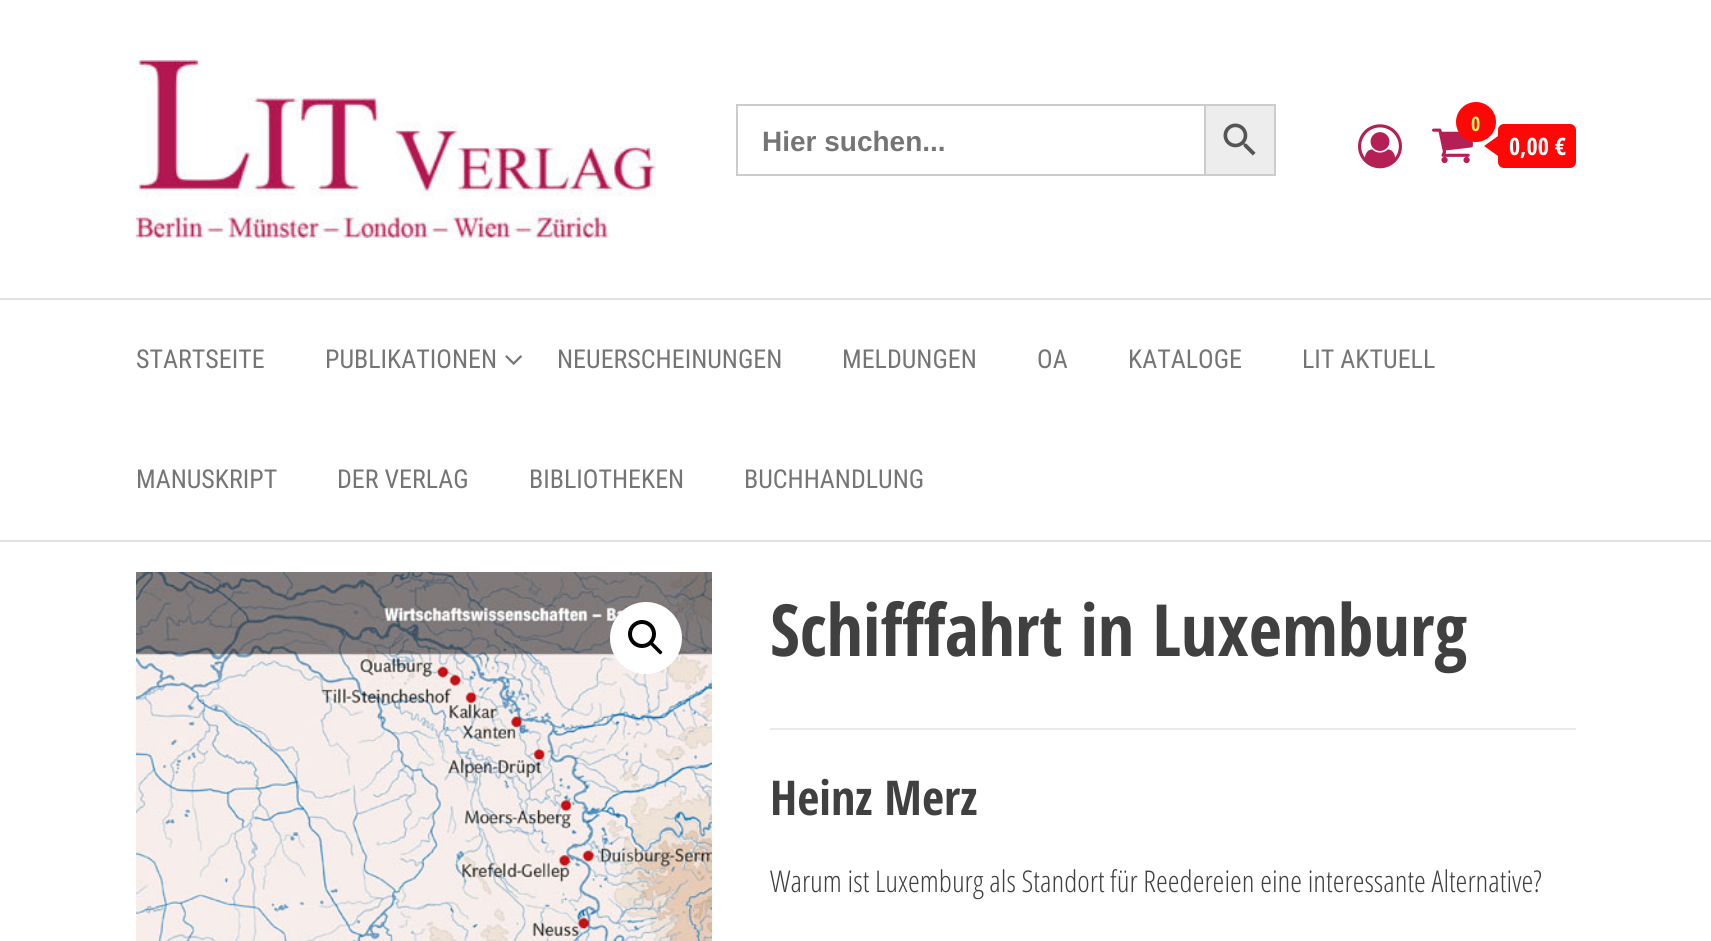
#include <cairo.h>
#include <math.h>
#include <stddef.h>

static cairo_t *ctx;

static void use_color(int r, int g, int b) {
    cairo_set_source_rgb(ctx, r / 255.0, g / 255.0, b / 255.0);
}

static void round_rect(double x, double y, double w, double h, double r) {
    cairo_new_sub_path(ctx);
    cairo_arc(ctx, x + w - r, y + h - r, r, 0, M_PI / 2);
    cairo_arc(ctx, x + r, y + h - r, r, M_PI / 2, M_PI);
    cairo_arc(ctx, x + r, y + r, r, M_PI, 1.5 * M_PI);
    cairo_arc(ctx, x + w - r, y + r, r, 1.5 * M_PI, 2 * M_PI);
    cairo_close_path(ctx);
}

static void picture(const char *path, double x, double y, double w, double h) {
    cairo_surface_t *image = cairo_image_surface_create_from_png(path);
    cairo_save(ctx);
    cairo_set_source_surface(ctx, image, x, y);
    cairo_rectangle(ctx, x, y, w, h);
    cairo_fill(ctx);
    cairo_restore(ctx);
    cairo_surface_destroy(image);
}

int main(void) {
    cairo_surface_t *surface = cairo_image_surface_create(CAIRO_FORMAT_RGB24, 1711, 941);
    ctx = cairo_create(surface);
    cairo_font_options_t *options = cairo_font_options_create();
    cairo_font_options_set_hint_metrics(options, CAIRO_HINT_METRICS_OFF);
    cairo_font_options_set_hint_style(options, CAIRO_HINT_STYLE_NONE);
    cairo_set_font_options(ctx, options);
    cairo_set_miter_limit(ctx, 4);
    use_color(255, 255, 255);
    cairo_paint(ctx);
    picture("img1.png", 136, 60, 520, 178);
    use_color(204, 204, 204);
    cairo_rectangle(ctx, 736, 104, 468, 2);
    cairo_fill(ctx);
    cairo_rectangle(ctx, 736, 174, 468, 2);
    cairo_fill(ctx);
    cairo_rectangle(ctx, 736, 104, 2, 72);
    cairo_fill(ctx);
    cairo_select_font_face(ctx, "Liberation Sans", CAIRO_FONT_SLANT_NORMAL, CAIRO_FONT_WEIGHT_BOLD);
    cairo_set_font_size(ctx, 28);
    use_color(117, 117, 117);
    cairo_move_to(ctx, 762, 151);
    cairo_show_text(ctx, "Hier suchen...");
    use_color(237, 237, 237);
    cairo_rectangle(ctx, 1205, 105, 70, 70);
    cairo_fill_preserve(ctx);
    use_color(204, 204, 204);
    cairo_stroke(ctx);
    picture("img2.png", 1223, 123, 33, 33);
    picture("img3.png", 1358, 124, 44, 45);
    picture("img4.png", 1432, 128, 41, 36);
    use_color(255, 7, 7);
    cairo_arc(ctx, 1476, 122, 20, 0, 2 * M_PI);
    cairo_fill(ctx);
    cairo_select_font_face(ctx, "Open Sans Condensed", CAIRO_FONT_SLANT_NORMAL, CAIRO_FONT_WEIGHT_BOLD);
    cairo_set_font_size(ctx, 20);
    use_color(237, 237, 101);
    cairo_move_to(ctx, 1471, 131);
    cairo_show_text(ctx, "0");
    use_color(255, 7, 7);
    round_rect(1498, 124, 78, 44, 6);
    cairo_fill(ctx);
    cairo_new_path(ctx);
    cairo_move_to(ctx, 1498, 136);
    cairo_line_to(ctx, 1498, 156);
    cairo_line_to(ctx, 1484, 146);
    cairo_close_path(ctx);
    cairo_fill(ctx);
    cairo_set_font_size(ctx, 24);
    use_color(255, 255, 255);
    cairo_move_to(ctx, 1509, 155);
    cairo_show_text(ctx, "0,00 €");
    use_color(226, 226, 226);
    cairo_rectangle(ctx, 0, 298, 1711, 2);
    cairo_fill(ctx);
    cairo_rectangle(ctx, 0, 540, 1711, 2);
    cairo_fill(ctx);
    cairo_select_font_face(ctx, "Roboto Condensed", CAIRO_FONT_SLANT_NORMAL, CAIRO_FONT_WEIGHT_NORMAL);
    cairo_set_font_size(ctx, 26);
    use_color(117, 117, 117);
    cairo_move_to(ctx, 136, 368);
    cairo_show_text(ctx, "STARTSEITE");
    cairo_move_to(ctx, 325, 368);
    cairo_show_text(ctx, "PUBLIKATIONEN");
    picture("img5.png", 505, 355, 17, 10);
    cairo_move_to(ctx, 557, 368);
    cairo_show_text(ctx, "NEUERSCHEINUNGEN");
    cairo_move_to(ctx, 842, 368);
    cairo_show_text(ctx, "MELDUNGEN");
    cairo_move_to(ctx, 1037, 368);
    cairo_show_text(ctx, "OA");
    cairo_move_to(ctx, 1128, 368);
    cairo_show_text(ctx, "KATALOGE");
    cairo_move_to(ctx, 1302, 368);
    cairo_show_text(ctx, "LIT AKTUELL");
    cairo_move_to(ctx, 136, 488);
    cairo_show_text(ctx, "MANUSKRIPT");
    cairo_move_to(ctx, 337, 488);
    cairo_show_text(ctx, "DER VERLAG");
    cairo_move_to(ctx, 529, 488);
    cairo_show_text(ctx, "BIBLIOTHEKEN");
    cairo_move_to(ctx, 744, 488);
    cairo_show_text(ctx, "BUCHHANDLUNG");
    picture("img6.png", 136, 572, 576, 369);
    use_color(255, 255, 255);
    cairo_arc(ctx, 646, 638, 36, 0, 2 * M_PI);
    cairo_fill(ctx);
    cairo_arc(ctx, 642, 634, 12, 0, 2 * M_PI);
    use_color(0, 0, 0);
    cairo_set_line_width(ctx, 4);
    cairo_stroke(ctx);
    cairo_new_path(ctx);
    cairo_move_to(ctx, 650.5, 642.5);
    cairo_curve_to(ctx, 651, 641.5, 652.5, 641.5, 653, 642.5);
    cairo_line_to(ctx, 661.5, 651);
    cairo_curve_to(ctx, 662.5, 651.5, 662.5, 653, 661.5, 653.5);
    cairo_curve_to(ctx, 661, 654.5, 659.5, 654.5, 659, 653.5);
    cairo_line_to(ctx, 650.5, 645);
    cairo_curve_to(ctx, 649.5, 644.5, 649.5, 643, 650.5, 642.5);
    cairo_close_path(ctx);
    cairo_fill(ctx);
    use_color(234, 234, 234);
    cairo_rectangle(ctx, 770, 728, 806, 2);
    cairo_fill(ctx);
    cairo_select_font_face(ctx, "Open Sans Condensed", CAIRO_FONT_SLANT_NORMAL, CAIRO_FONT_WEIGHT_BOLD);
    cairo_set_font_size(ctx, 72);
    use_color(64, 64, 64);
    cairo_move_to(ctx, 770, 656);
    cairo_show_text(ctx, "Schifffahrt in Luxemburg");
    cairo_set_font_size(ctx, 48);
    cairo_move_to(ctx, 770, 815);
    cairo_show_text(ctx, "Heinz Merz");
    cairo_select_font_face(ctx, "Open Sans Condensed Light", CAIRO_FONT_SLANT_NORMAL, CAIRO_FONT_WEIGHT_NORMAL);
    cairo_set_font_size(ctx, 30);
    cairo_move_to(ctx, 770, 892);
    cairo_show_text(ctx, "Warum ist Luxemburg als Standort für Reedereien eine interessante Alternative?");
    cairo_surface_write_to_png(surface, "result.png");
    cairo_font_options_destroy(options);
    cairo_destroy(ctx);
    cairo_surface_destroy(surface);
    return 0;
}
